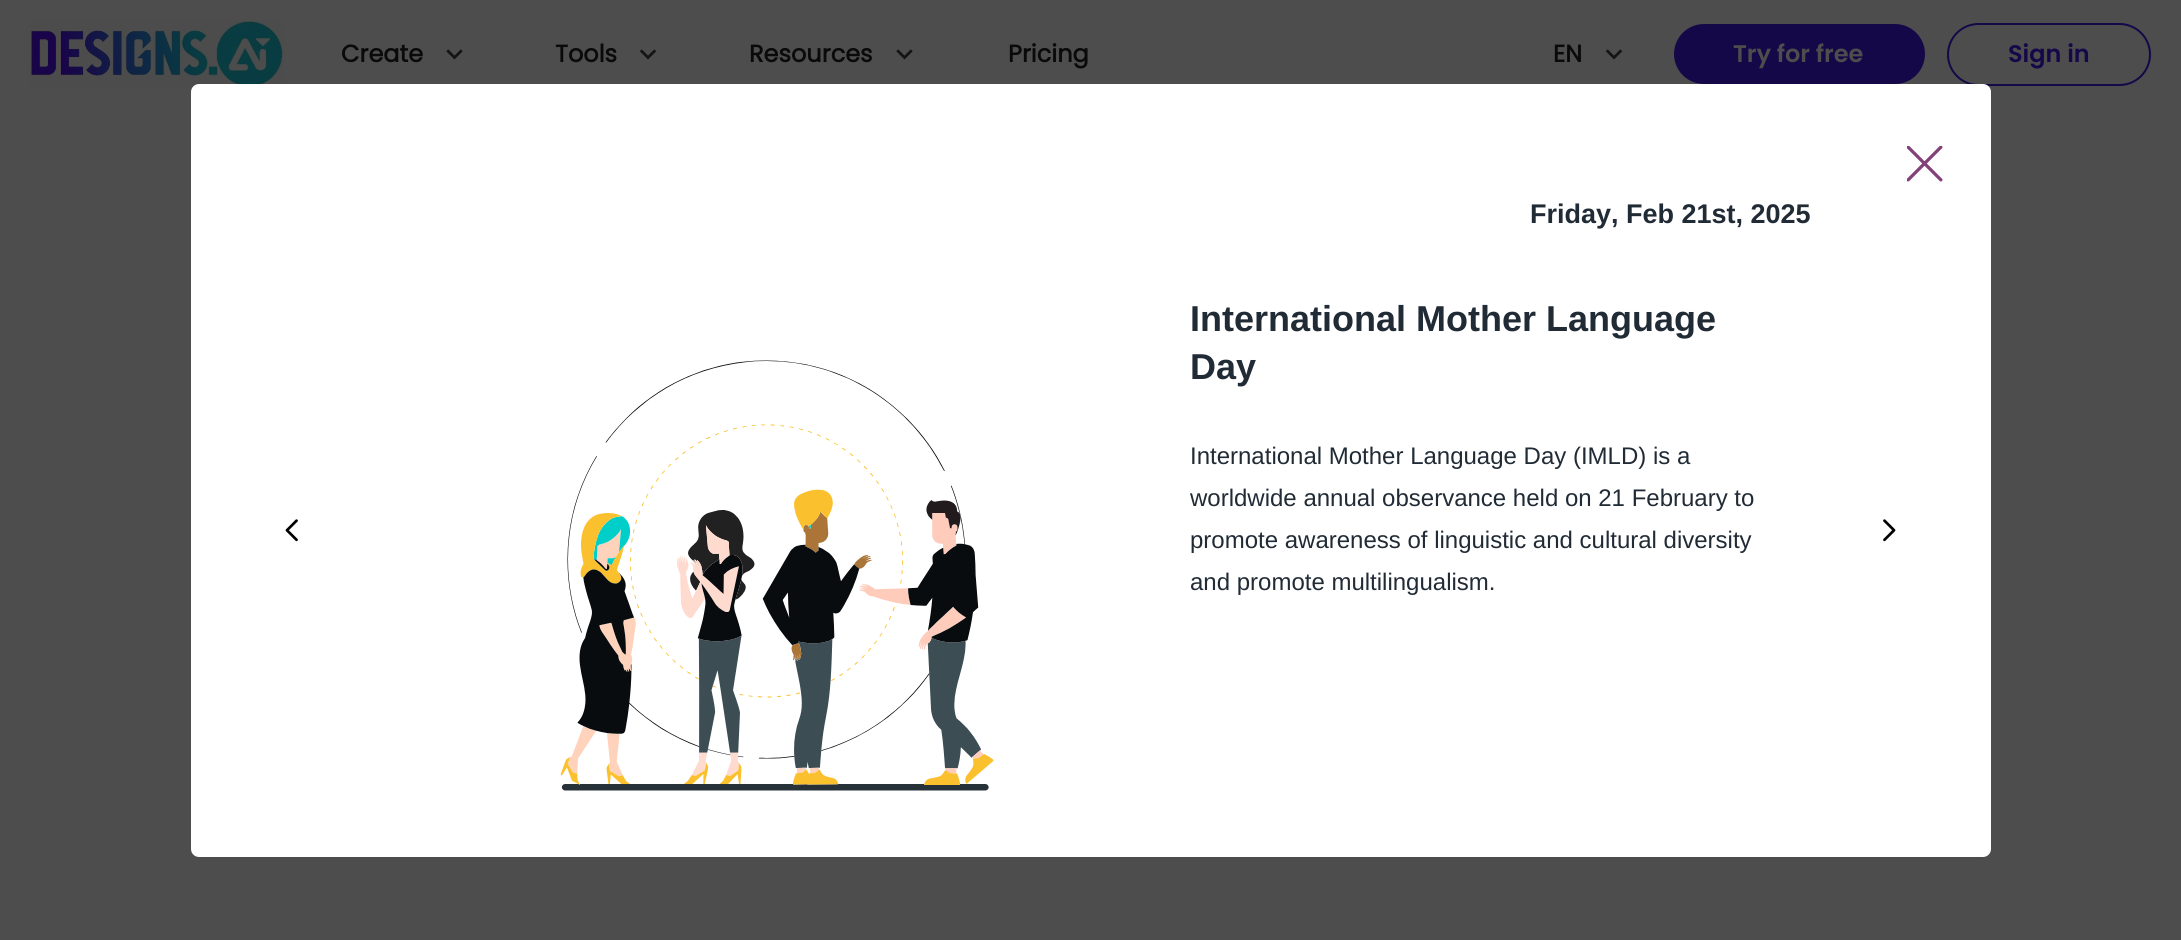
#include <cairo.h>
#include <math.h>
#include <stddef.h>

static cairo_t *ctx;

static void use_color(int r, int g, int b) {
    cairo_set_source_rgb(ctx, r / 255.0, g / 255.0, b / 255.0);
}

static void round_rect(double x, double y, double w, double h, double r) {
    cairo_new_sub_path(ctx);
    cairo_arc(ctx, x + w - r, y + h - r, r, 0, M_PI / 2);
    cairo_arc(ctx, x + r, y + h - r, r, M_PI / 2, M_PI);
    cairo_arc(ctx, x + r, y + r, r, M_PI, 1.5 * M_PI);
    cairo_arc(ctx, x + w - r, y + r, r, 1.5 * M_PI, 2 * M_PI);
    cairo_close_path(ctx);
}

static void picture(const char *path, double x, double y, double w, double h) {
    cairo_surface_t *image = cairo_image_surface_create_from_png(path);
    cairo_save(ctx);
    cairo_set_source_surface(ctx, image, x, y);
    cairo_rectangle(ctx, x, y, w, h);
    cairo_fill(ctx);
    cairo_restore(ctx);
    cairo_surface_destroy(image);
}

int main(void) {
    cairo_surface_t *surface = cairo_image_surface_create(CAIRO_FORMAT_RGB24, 2181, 940);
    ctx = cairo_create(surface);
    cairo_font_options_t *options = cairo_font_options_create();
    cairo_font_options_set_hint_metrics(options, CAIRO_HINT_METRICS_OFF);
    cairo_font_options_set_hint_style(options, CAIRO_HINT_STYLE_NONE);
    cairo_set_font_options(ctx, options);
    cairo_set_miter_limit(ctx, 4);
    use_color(77, 77, 77);
    cairo_paint(ctx);
    picture("img1.png", 30, 21, 254, 66);
    cairo_select_font_face(ctx, "Poppins", CAIRO_FONT_SLANT_NORMAL, CAIRO_FONT_WEIGHT_BOLD);
    cairo_set_font_size(ctx, 24);
    use_color(10, 10, 10);
    cairo_move_to(ctx, 341, 62);
    cairo_show_text(ctx, "Create");
    picture("img2.png", 446, 49, 17, 11);
    cairo_move_to(ctx, 555, 62);
    cairo_show_text(ctx, "Tools");
    picture("img3.png", 639, 49, 18, 11);
    cairo_move_to(ctx, 749, 62);
    cairo_show_text(ctx, "Resources");
    picture("img2.png", 896, 49, 17, 11);
    cairo_move_to(ctx, 1008, 62);
    cairo_show_text(ctx, "Pricing");
    cairo_move_to(ctx, 1553, 62);
    cairo_show_text(ctx, "EN");
    picture("img3.png", 1605, 49, 18, 11);
    use_color(21, 8, 72);
    round_rect(1674, 24, 251, 60, 30);
    cairo_fill(ctx);
    cairo_select_font_face(ctx, "Poppins SemiBold", CAIRO_FONT_SLANT_NORMAL, CAIRO_FONT_WEIGHT_NORMAL);
    use_color(77, 77, 77);
    cairo_move_to(ctx, 1733, 62);
    cairo_show_text(ctx, "Try for free");
    round_rect(1948, 24, 202, 61, 30.5);
    use_color(21, 8, 72);
    cairo_stroke(ctx);
    cairo_move_to(ctx, 2008, 62);
    cairo_show_text(ctx, "Sign in");
    use_color(255, 255, 255);
    round_rect(191, 84, 1800, 773, 8);
    cairo_fill(ctx);
    picture("img4.png", 1907, 146, 36, 36);
    cairo_select_font_face(ctx, "Liberation Sans", CAIRO_FONT_SLANT_NORMAL, CAIRO_FONT_WEIGHT_BOLD);
    cairo_set_font_size(ctx, 27);
    use_color(33, 43, 54);
    cairo_move_to(ctx, 1530, 223);
    cairo_show_text(ctx, "Friday, Feb 21st, 2025");
    picture("img5.png", 285, 519, 13, 23);
    picture("img6.png", 560, 360, 434, 431);
    cairo_set_font_size(ctx, 36);
    cairo_move_to(ctx, 1190, 331);
    cairo_show_text(ctx, "International Mother Language");
    cairo_move_to(ctx, 1190, 379);
    cairo_show_text(ctx, "Day");
    cairo_select_font_face(ctx, "Liberation Sans", CAIRO_FONT_SLANT_NORMAL, CAIRO_FONT_WEIGHT_NORMAL);
    cairo_set_font_size(ctx, 24);
    cairo_move_to(ctx, 1190, 464);
    cairo_show_text(ctx, "International Mother Language Day (IMLD) is a");
    cairo_move_to(ctx, 1190, 506);
    cairo_show_text(ctx, "worldwide annual observance held on 21 February to");
    cairo_move_to(ctx, 1190, 548);
    cairo_show_text(ctx, "promote awareness of linguistic and cultural diversity");
    cairo_move_to(ctx, 1190, 590);
    cairo_show_text(ctx, "and promote multilingualism.");
    picture("img7.png", 1883, 519, 13, 23);
    cairo_surface_write_to_png(surface, "result.png");
    cairo_font_options_destroy(options);
    cairo_destroy(ctx);
    cairo_surface_destroy(surface);
    return 0;
}
